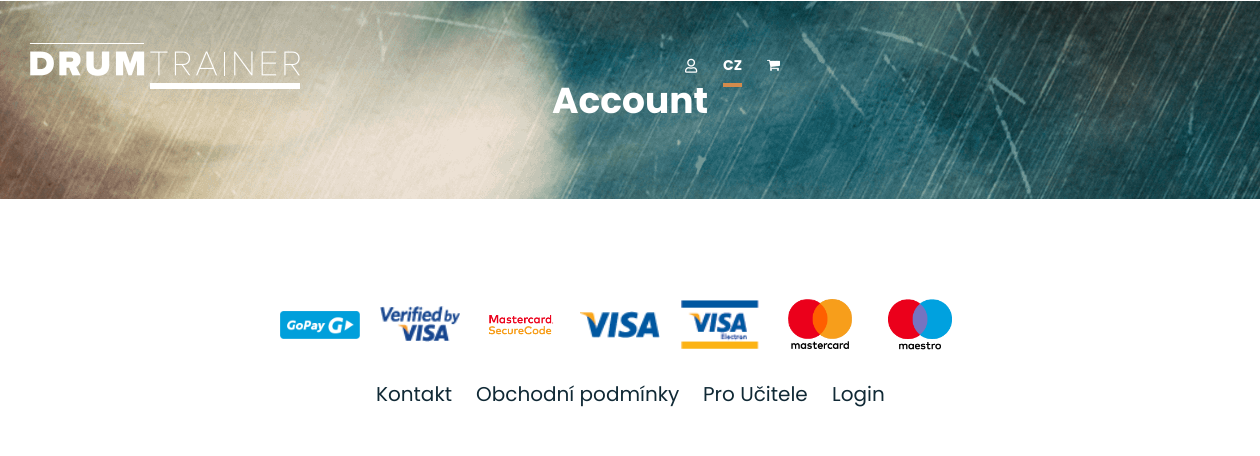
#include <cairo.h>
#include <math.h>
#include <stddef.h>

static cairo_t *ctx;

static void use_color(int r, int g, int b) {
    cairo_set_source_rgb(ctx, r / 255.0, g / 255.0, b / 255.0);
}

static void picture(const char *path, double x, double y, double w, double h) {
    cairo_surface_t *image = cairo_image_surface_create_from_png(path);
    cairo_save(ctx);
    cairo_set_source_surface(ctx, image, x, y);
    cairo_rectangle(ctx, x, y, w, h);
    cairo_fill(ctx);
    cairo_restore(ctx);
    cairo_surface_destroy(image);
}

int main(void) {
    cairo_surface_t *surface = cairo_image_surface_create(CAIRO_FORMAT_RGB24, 1260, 456);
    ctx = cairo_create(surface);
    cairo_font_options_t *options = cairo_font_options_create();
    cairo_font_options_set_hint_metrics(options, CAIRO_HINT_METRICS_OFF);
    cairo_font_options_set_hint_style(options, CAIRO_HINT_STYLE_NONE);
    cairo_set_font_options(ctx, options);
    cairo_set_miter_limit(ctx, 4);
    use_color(255, 255, 255);
    cairo_paint(ctx);
    picture("img4.png", 0, 1, 1260, 198);
    picture("img1.png", 30, 43, 270, 46);
    picture("img2.png", 685, 58, 13, 15);
    cairo_select_font_face(ctx, "Poppins", CAIRO_FONT_SLANT_NORMAL, CAIRO_FONT_WEIGHT_BOLD);
    cairo_set_font_size(ctx, 14);
    use_color(255, 255, 255);
    cairo_move_to(ctx, 723, 70);
    cairo_show_text(ctx, "CZ");
    use_color(211, 139, 76);
    cairo_rectangle(ctx, 723, 83, 19, 4);
    cairo_fill(ctx);
    picture("img3.png", 767, 59, 13, 12);
    cairo_set_font_size(ctx, 36);
    use_color(255, 255, 255);
    cairo_move_to(ctx, 552, 113);
    cairo_show_text(ctx, "Account");
    picture("img5.png", 280, 311, 80, 28);
    picture("img6.png", 380, 306, 80, 36);
    picture("img7.png", 488, 315, 66, 20);
    picture("img8.png", 580, 311, 80, 27);
    picture("img9.png", 681, 300, 78, 49);
    picture("img10.png", 788, 299, 64, 50);
    picture("img11.png", 888, 299, 64, 51);
    cairo_select_font_face(ctx, "Poppins", CAIRO_FONT_SLANT_NORMAL, CAIRO_FONT_WEIGHT_NORMAL);
    cairo_set_font_size(ctx, 20);
    use_color(16, 41, 53);
    cairo_move_to(ctx, 376, 401);
    cairo_show_text(ctx, "Kontakt");
    cairo_move_to(ctx, 476, 401);
    cairo_show_text(ctx, "Obchodní podmínky");
    cairo_move_to(ctx, 703, 401);
    cairo_show_text(ctx, "Pro Učitele");
    cairo_move_to(ctx, 832, 401);
    cairo_show_text(ctx, "Login");
    cairo_surface_write_to_png(surface, "result.png");
    cairo_font_options_destroy(options);
    cairo_destroy(ctx);
    cairo_surface_destroy(surface);
    return 0;
}
